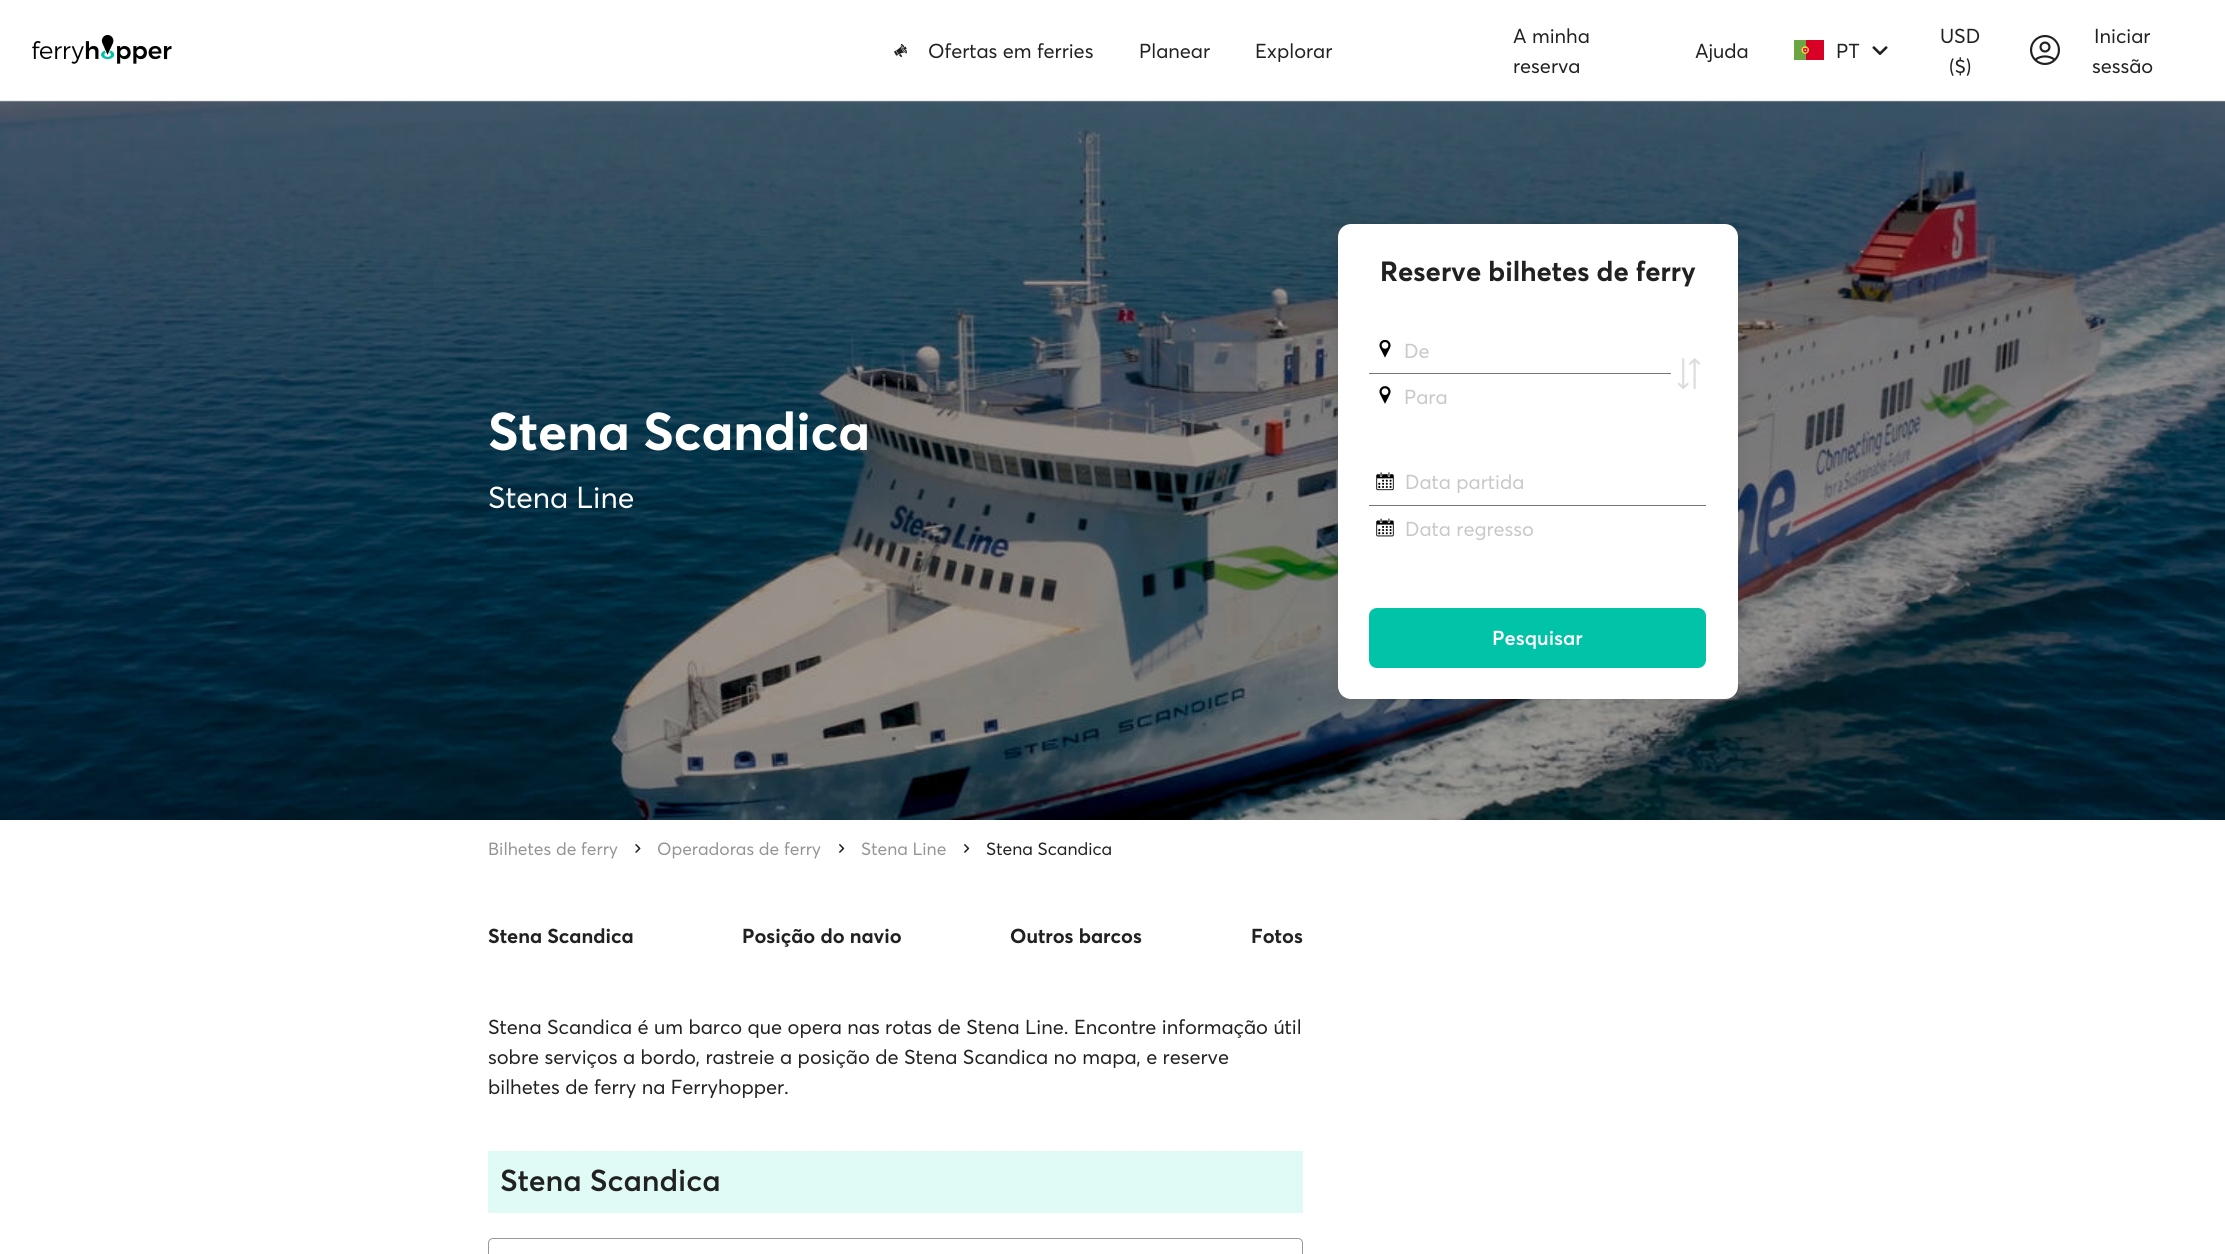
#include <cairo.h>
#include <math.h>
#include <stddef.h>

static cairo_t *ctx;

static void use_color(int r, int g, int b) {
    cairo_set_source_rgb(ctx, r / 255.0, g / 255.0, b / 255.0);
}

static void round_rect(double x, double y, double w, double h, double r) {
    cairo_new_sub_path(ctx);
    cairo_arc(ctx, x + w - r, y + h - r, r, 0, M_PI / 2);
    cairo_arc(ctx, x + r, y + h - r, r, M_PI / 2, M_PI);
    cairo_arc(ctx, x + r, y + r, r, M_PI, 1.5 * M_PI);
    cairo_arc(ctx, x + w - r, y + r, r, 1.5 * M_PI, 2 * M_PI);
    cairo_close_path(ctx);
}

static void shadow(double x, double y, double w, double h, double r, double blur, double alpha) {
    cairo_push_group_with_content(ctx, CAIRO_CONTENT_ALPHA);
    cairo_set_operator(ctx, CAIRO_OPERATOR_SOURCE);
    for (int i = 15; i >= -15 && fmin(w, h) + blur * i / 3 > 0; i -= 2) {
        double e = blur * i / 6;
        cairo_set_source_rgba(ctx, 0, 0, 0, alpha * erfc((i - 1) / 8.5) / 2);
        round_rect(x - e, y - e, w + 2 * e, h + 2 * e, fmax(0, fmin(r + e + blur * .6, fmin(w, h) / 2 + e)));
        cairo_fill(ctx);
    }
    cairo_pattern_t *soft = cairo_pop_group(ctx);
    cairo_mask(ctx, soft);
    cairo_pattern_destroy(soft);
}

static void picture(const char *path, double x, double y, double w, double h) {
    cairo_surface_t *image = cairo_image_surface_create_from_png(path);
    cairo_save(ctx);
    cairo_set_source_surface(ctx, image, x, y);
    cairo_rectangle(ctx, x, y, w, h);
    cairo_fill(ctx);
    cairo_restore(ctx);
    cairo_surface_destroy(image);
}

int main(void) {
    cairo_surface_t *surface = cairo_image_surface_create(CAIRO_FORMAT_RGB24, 2225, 1254);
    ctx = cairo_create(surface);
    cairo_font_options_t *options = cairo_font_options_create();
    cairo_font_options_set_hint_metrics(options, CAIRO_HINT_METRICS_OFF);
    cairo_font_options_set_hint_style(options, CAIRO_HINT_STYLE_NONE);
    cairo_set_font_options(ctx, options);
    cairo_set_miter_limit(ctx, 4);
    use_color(255, 255, 255);
    cairo_paint(ctx);
    use_color(237, 237, 237);
    cairo_rectangle(ctx, 0, 100, 2225, 1);
    cairo_fill(ctx);
    picture("img1.png", 32, 35, 140, 29);
    picture("img2.png", 894, 44, 13, 13);
    cairo_select_font_face(ctx, "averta", CAIRO_FONT_SLANT_NORMAL, CAIRO_FONT_WEIGHT_NORMAL);
    cairo_set_font_size(ctx, 20);
    use_color(33, 33, 33);
    cairo_move_to(ctx, 928, 58);
    cairo_show_text(ctx, "Ofertas em ferries");
    cairo_move_to(ctx, 1139, 58);
    cairo_show_text(ctx, "Planear");
    cairo_move_to(ctx, 1255, 58);
    cairo_show_text(ctx, "Explorar");
    cairo_move_to(ctx, 1513, 43);
    cairo_show_text(ctx, "A minha");
    cairo_move_to(ctx, 1513, 73);
    cairo_show_text(ctx, "reserva");
    cairo_move_to(ctx, 1695, 58);
    cairo_show_text(ctx, "Ajuda");
    picture("img3.png", 1794, 40, 30, 20);
    cairo_move_to(ctx, 1836, 58);
    cairo_show_text(ctx, "PT");
    picture("img4.png", 1872, 46, 16, 9);
    cairo_move_to(ctx, 1940, 43);
    cairo_show_text(ctx, "USD");
    cairo_move_to(ctx, 1949, 73);
    cairo_show_text(ctx, "($)");
    picture("img5.png", 2030, 35, 30, 30);
    cairo_move_to(ctx, 2094, 43);
    cairo_show_text(ctx, "Iniciar");
    cairo_move_to(ctx, 2092, 73);
    cairo_show_text(ctx, "sessão");
    picture("img11.png", 0, 101, 2225, 719);
    use_color(0, 0, 0);
    shadow(1338, 224, 400, 475, 13, 7.5, 0.1);
    use_color(255, 255, 255);
    round_rect(1338, 224, 400, 475, 13);
    cairo_fill(ctx);
    cairo_select_font_face(ctx, "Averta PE", CAIRO_FONT_SLANT_NORMAL, CAIRO_FONT_WEIGHT_BOLD);
    cairo_set_font_size(ctx, 27.5);
    use_color(33, 33, 33);
    cairo_move_to(ctx, 1380, 281);
    cairo_show_text(ctx, "Reserve bilhetes de ferry");
    use_color(117, 117, 117);
    cairo_rectangle(ctx, 1369, 373, 302, 1);
    cairo_fill(ctx);
    picture("img6.png", 1379, 340, 12, 18);
    cairo_select_font_face(ctx, "averta", CAIRO_FONT_SLANT_NORMAL, CAIRO_FONT_WEIGHT_NORMAL);
    cairo_set_font_size(ctx, 20);
    use_color(200, 200, 200);
    cairo_move_to(ctx, 1404, 358);
    cairo_show_text(ctx, "De");
    picture("img7.png", 1379, 386, 12, 18);
    cairo_move_to(ctx, 1404, 404);
    cairo_show_text(ctx, "Para");
    picture("img8.png", 1677, 358, 23, 32);
    use_color(117, 117, 117);
    cairo_rectangle(ctx, 1369, 505, 337, 1);
    cairo_fill(ctx);
    picture("img9.png", 1376, 472, 18, 19);
    use_color(200, 200, 200);
    cairo_move_to(ctx, 1405, 489);
    cairo_show_text(ctx, "Data partida");
    picture("img10.png", 1376, 518, 18, 19);
    cairo_move_to(ctx, 1405, 536);
    cairo_show_text(ctx, "Data regresso");
    use_color(1, 195, 167);
    round_rect(1369, 608, 337, 60, 8);
    cairo_fill(ctx);
    cairo_select_font_face(ctx, "Averta PE SemiBold", CAIRO_FONT_SLANT_NORMAL, CAIRO_FONT_WEIGHT_NORMAL);
    use_color(255, 255, 255);
    cairo_move_to(ctx, 1492, 645);
    cairo_show_text(ctx, "Pesquisar");
    cairo_select_font_face(ctx, "averta", CAIRO_FONT_SLANT_NORMAL, CAIRO_FONT_WEIGHT_NORMAL);
    use_color(33, 33, 33);
    cairo_move_to(ctx, 488, 1034);
    cairo_show_text(ctx, "Stena Scandica é um barco que opera nas rotas de Stena Line. Encontre informação útil");
    cairo_move_to(ctx, 488, 1064);
    cairo_show_text(ctx, "sobre serviços a bordo, rastreie a posição de Stena Scandica no mapa, e reserve");
    cairo_move_to(ctx, 488, 1094);
    cairo_show_text(ctx, "bilhetes de ferry na Ferryhopper.");
    use_color(224, 250, 246);
    cairo_rectangle(ctx, 488, 1151, 815, 62);
    cairo_fill(ctx);
    cairo_select_font_face(ctx, "Averta PE SemiBold", CAIRO_FONT_SLANT_NORMAL, CAIRO_FONT_WEIGHT_NORMAL);
    cairo_set_font_size(ctx, 30);
    use_color(33, 33, 33);
    cairo_move_to(ctx, 500, 1191);
    cairo_show_text(ctx, "Stena Scandica");
    round_rect(488.5, 1238.5, 814, 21, 4.5);
    use_color(153, 153, 153);
    cairo_set_line_width(ctx, 1);
    cairo_stroke(ctx);
    cairo_select_font_face(ctx, "Averta PE", CAIRO_FONT_SLANT_NORMAL, CAIRO_FONT_WEIGHT_BOLD);
    cairo_set_font_size(ctx, 52.5);
    use_color(255, 255, 255);
    cairo_move_to(ctx, 488, 450);
    cairo_show_text(ctx, "Stena Scandica");
    cairo_select_font_face(ctx, "averta", CAIRO_FONT_SLANT_NORMAL, CAIRO_FONT_WEIGHT_NORMAL);
    cairo_set_font_size(ctx, 30);
    cairo_move_to(ctx, 488, 508);
    cairo_show_text(ctx, "Stena Line");
    cairo_set_font_size(ctx, 17.5);
    use_color(148, 148, 148);
    cairo_move_to(ctx, 488, 855);
    cairo_show_text(ctx, "Bilhetes de ferry");
    picture("img12.png", 635, 844, 6, 9);
    cairo_move_to(ctx, 657, 855);
    cairo_show_text(ctx, "Operadoras de ferry");
    picture("img13.png", 839, 844, 6, 9);
    cairo_move_to(ctx, 861, 855);
    cairo_show_text(ctx, "Stena Line");
    picture("img13.png", 964, 844, 6, 9);
    use_color(33, 33, 33);
    cairo_move_to(ctx, 986, 855);
    cairo_show_text(ctx, "Stena Scandica");
    cairo_select_font_face(ctx, "Averta PE", CAIRO_FONT_SLANT_NORMAL, CAIRO_FONT_WEIGHT_BOLD);
    cairo_set_font_size(ctx, 20);
    cairo_move_to(ctx, 488, 943);
    cairo_show_text(ctx, "Stena Scandica");
    cairo_move_to(ctx, 742, 943);
    cairo_show_text(ctx, "Posição do navio");
    cairo_move_to(ctx, 1010, 943);
    cairo_show_text(ctx, "Outros barcos");
    cairo_move_to(ctx, 1251, 943);
    cairo_show_text(ctx, "Fotos");
    cairo_surface_write_to_png(surface, "result.png");
    cairo_font_options_destroy(options);
    cairo_destroy(ctx);
    cairo_surface_destroy(surface);
    return 0;
}
